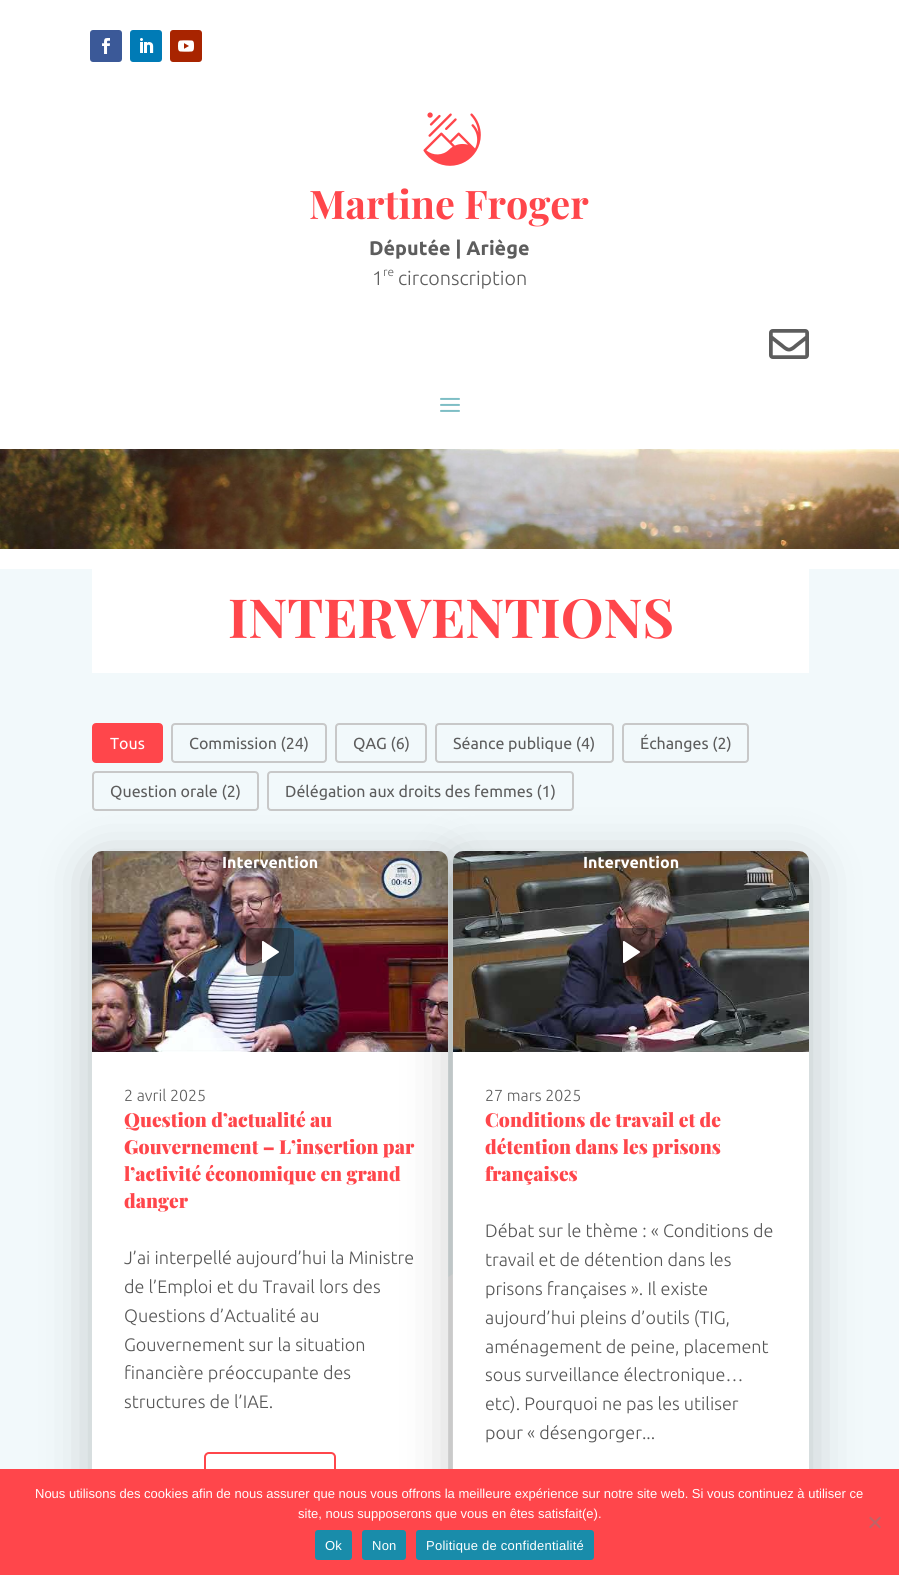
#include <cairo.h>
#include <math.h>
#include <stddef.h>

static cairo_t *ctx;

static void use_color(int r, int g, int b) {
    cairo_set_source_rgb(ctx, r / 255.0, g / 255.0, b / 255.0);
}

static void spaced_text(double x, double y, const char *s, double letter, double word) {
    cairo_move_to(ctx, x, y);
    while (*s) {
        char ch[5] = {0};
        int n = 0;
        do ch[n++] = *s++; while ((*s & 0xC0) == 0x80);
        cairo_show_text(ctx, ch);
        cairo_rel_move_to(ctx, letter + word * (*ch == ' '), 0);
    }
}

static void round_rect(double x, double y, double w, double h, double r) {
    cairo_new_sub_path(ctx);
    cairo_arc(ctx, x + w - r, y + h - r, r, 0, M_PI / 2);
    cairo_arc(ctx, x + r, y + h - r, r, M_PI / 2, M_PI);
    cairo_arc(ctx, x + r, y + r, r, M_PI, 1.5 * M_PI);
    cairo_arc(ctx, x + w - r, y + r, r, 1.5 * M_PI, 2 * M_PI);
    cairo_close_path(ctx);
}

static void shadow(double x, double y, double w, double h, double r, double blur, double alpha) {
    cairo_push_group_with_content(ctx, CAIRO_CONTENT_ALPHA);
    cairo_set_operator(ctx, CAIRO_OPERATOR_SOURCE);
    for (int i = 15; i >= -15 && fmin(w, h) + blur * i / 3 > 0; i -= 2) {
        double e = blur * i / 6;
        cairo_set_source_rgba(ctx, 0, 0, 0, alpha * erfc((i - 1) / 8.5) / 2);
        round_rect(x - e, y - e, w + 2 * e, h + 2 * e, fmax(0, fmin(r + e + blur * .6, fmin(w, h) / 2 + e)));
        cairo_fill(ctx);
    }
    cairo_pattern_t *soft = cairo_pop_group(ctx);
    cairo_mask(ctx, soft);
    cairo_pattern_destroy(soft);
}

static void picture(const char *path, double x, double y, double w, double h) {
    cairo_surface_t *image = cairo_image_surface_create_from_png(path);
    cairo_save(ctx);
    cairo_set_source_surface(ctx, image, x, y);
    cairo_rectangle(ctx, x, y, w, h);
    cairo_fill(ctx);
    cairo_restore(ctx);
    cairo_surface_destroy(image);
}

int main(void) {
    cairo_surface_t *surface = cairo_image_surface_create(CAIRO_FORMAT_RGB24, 899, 1575);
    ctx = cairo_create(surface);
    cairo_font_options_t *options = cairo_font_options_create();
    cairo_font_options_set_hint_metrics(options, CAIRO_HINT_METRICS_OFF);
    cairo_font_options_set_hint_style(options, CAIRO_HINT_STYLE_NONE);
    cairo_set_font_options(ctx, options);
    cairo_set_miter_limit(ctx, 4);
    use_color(255, 255, 255);
    cairo_paint(ctx);
    use_color(59, 89, 152);
    round_rect(90, 30, 32, 32, 3);
    cairo_fill(ctx);
    picture("img1.png", 102, 38, 8, 16);
    use_color(0, 123, 182);
    round_rect(130, 30, 32, 32, 3);
    cairo_fill(ctx);
    picture("img2.png", 140, 38, 14, 15);
    use_color(168, 36, 0);
    round_rect(170, 30, 32, 32, 3);
    cairo_fill(ctx);
    picture("img3.png", 178, 40, 16, 12);
    picture("img4.png", 423, 112, 58, 54);
    cairo_select_font_face(ctx, "Playfair Display", CAIRO_FONT_SLANT_NORMAL, CAIRO_FONT_WEIGHT_BOLD);
    cairo_set_font_size(ctx, 39.5);
    use_color(255, 70, 75);
    cairo_move_to(ctx, 309, 219);
    cairo_show_text(ctx, "Martine Froger");
    cairo_select_font_face(ctx, "Ubuntu", CAIRO_FONT_SLANT_NORMAL, CAIRO_FONT_WEIGHT_BOLD);
    cairo_set_font_size(ctx, 19.75);
    use_color(93, 93, 93);
    cairo_move_to(ctx, 369, 255);
    cairo_show_text(ctx, "Députée | Ariège");
    cairo_select_font_face(ctx, "Ubuntu Light", CAIRO_FONT_SLANT_NORMAL, CAIRO_FONT_WEIGHT_NORMAL);
    cairo_move_to(ctx, 372, 285);
    cairo_show_text(ctx, "1");
    cairo_set_font_size(ctx, 12);
    cairo_move_to(ctx, 383, 276);
    cairo_show_text(ctx, "re");
    cairo_set_font_size(ctx, 19.75);
    cairo_move_to(ctx, 398, 285);
    cairo_show_text(ctx, "circonscription");
    picture("img5.png", 769, 329, 40, 30);
    picture("img6.png", 440, 397, 20, 15);
    picture("img7.png", 0, 449, 899, 100);
    use_color(242, 249, 251);
    cairo_rectangle(ctx, 0, 569, 899, 900);
    cairo_fill(ctx);
    use_color(255, 255, 255);
    cairo_rectangle(ctx, 92, 569, 717, 104);
    cairo_fill(ctx);
    cairo_select_font_face(ctx, "Playfair Display", CAIRO_FONT_SLANT_NORMAL, CAIRO_FONT_WEIGHT_BOLD);
    cairo_set_font_size(ctx, 54);
    use_color(255, 70, 75);
    cairo_move_to(ctx, 228, 638);
    cairo_show_text(ctx, "INTERVENTIONS");
    round_rect(93, 724, 69, 38, 3);
    cairo_fill_preserve(ctx);
    cairo_stroke(ctx);
    cairo_select_font_face(ctx, "Ubuntu", CAIRO_FONT_SLANT_NORMAL, CAIRO_FONT_WEIGHT_NORMAL);
    cairo_set_font_size(ctx, 16);
    use_color(255, 255, 255);
    cairo_move_to(ctx, 110, 749);
    cairo_show_text(ctx, "Tous");
    round_rect(172, 724, 154, 38, 3);
    use_color(200, 200, 200);
    cairo_stroke(ctx);
    use_color(93, 93, 93);
    cairo_move_to(ctx, 189, 749);
    cairo_show_text(ctx, "Commission (24)");
    round_rect(336, 724, 90, 38, 3);
    use_color(200, 200, 200);
    cairo_stroke(ctx);
    use_color(93, 93, 93);
    cairo_move_to(ctx, 353, 749);
    cairo_show_text(ctx, "QAG (6)");
    round_rect(436, 724, 177, 38, 3);
    use_color(200, 200, 200);
    cairo_stroke(ctx);
    use_color(93, 93, 93);
    cairo_move_to(ctx, 453, 749);
    cairo_show_text(ctx, "Séance publique (4)");
    round_rect(623, 724, 125, 38, 3);
    use_color(200, 200, 200);
    cairo_stroke(ctx);
    use_color(93, 93, 93);
    cairo_move_to(ctx, 640, 749);
    cairo_show_text(ctx, "Échanges (2)");
    round_rect(93, 772, 165, 38, 3);
    use_color(200, 200, 200);
    cairo_stroke(ctx);
    use_color(93, 93, 93);
    cairo_move_to(ctx, 110, 797);
    cairo_show_text(ctx, "Question orale (2)");
    round_rect(268, 772, 305, 38, 3);
    use_color(200, 200, 200);
    cairo_stroke(ctx);
    use_color(93, 93, 93);
    cairo_move_to(ctx, 285, 797);
    cairo_show_text(ctx, "Délégation aux droits des femmes (1)");
    picture("img12.png", 448, 1274, 5, 195);
    use_color(0, 0, 0);
    shadow(92, 861, 356, 675, 10, 25, 0.22);
    picture("img8.png", 92, 851, 356, 201);
    cairo_select_font_face(ctx, "Ubuntu", CAIRO_FONT_SLANT_NORMAL, CAIRO_FONT_WEIGHT_BOLD);
    use_color(255, 255, 255);
    cairo_move_to(ctx, 222, 868);
    cairo_show_text(ctx, "Intervention");
    cairo_set_source_rgba(ctx, 0.118, 0.118, 0.118, 0.5);
    round_rect(246, 928, 48, 48, 5);
    cairo_fill(ctx);
    picture("img9.png", 262, 941, 17, 22);
    use_color(255, 255, 255);
    cairo_rectangle(ctx, 92, 1052, 356, 417);
    cairo_fill(ctx);
    cairo_select_font_face(ctx, "Ubuntu Light", CAIRO_FONT_SLANT_NORMAL, CAIRO_FONT_WEIGHT_NORMAL);
    use_color(93, 93, 93);
    cairo_move_to(ctx, 124, 1101);
    cairo_show_text(ctx, "2 avril 2025");
    cairo_select_font_face(ctx, "Playfair Display Black", CAIRO_FONT_SLANT_NORMAL, CAIRO_FONT_WEIGHT_NORMAL);
    cairo_set_font_size(ctx, 19.25);
    use_color(255, 70, 75);
    cairo_move_to(ctx, 124, 1127);
    cairo_show_text(ctx, "Question d’actualité au");
    cairo_move_to(ctx, 124, 1154);
    cairo_show_text(ctx, "Gouvernement – L’insertion par");
    cairo_move_to(ctx, 124, 1181);
    cairo_show_text(ctx, "l’activité économique en grand");
    cairo_move_to(ctx, 124, 1208);
    cairo_show_text(ctx, "danger");
    cairo_select_font_face(ctx, "Ubuntu Light", CAIRO_FONT_SLANT_NORMAL, CAIRO_FONT_WEIGHT_NORMAL);
    cairo_set_font_size(ctx, 18);
    use_color(86, 86, 86);
    cairo_move_to(ctx, 124, 1264);
    cairo_show_text(ctx, "J’ai interpellé aujourd’hui la Ministre");
    cairo_move_to(ctx, 124, 1293);
    cairo_show_text(ctx, "de l’Emploi et du Travail lors des");
    cairo_move_to(ctx, 124, 1322);
    cairo_show_text(ctx, "Questions d’Actualité au");
    cairo_move_to(ctx, 124, 1351);
    cairo_show_text(ctx, "Gouvernement sur la situation");
    cairo_move_to(ctx, 124, 1379);
    cairo_show_text(ctx, "financière préoccupante des");
    cairo_move_to(ctx, 124, 1408);
    cairo_show_text(ctx, "structures de l’IAE.");
    round_rect(205, 1453, 130, 40, 4);
    use_color(255, 70, 75);
    cairo_stroke(ctx);
    use_color(0, 0, 0);
    shadow(453, 861, 356, 706, 10, 25, 0.22);
    picture("img10.png", 453, 851, 356, 201);
    cairo_select_font_face(ctx, "Ubuntu", CAIRO_FONT_SLANT_NORMAL, CAIRO_FONT_WEIGHT_BOLD);
    cairo_set_font_size(ctx, 16);
    use_color(255, 255, 255);
    cairo_move_to(ctx, 583, 868);
    cairo_show_text(ctx, "Intervention");
    cairo_set_source_rgba(ctx, 0.118, 0.118, 0.118, 0.5);
    round_rect(607, 928, 48, 48, 5);
    cairo_fill(ctx);
    picture("img11.png", 623, 941, 17, 22);
    use_color(255, 255, 255);
    cairo_rectangle(ctx, 453, 1052, 356, 417);
    cairo_fill(ctx);
    cairo_select_font_face(ctx, "Ubuntu Light", CAIRO_FONT_SLANT_NORMAL, CAIRO_FONT_WEIGHT_NORMAL);
    use_color(93, 93, 93);
    cairo_move_to(ctx, 485, 1101);
    cairo_show_text(ctx, "27 mars 2025");
    cairo_select_font_face(ctx, "Playfair Display Black", CAIRO_FONT_SLANT_NORMAL, CAIRO_FONT_WEIGHT_NORMAL);
    cairo_set_font_size(ctx, 19.25);
    use_color(255, 70, 75);
    cairo_move_to(ctx, 485, 1127);
    cairo_show_text(ctx, "Conditions de travail et de");
    cairo_move_to(ctx, 485, 1154);
    cairo_show_text(ctx, "détention dans les prisons");
    cairo_move_to(ctx, 485, 1181);
    cairo_show_text(ctx, "françaises");
    cairo_select_font_face(ctx, "Ubuntu Light", CAIRO_FONT_SLANT_NORMAL, CAIRO_FONT_WEIGHT_NORMAL);
    cairo_set_font_size(ctx, 18);
    use_color(86, 86, 86);
    cairo_move_to(ctx, 485, 1237);
    cairo_show_text(ctx, "Débat sur le thème : « Conditions de");
    cairo_move_to(ctx, 485, 1266);
    cairo_show_text(ctx, "travail et de détention dans les");
    cairo_move_to(ctx, 485, 1295);
    cairo_show_text(ctx, "prisons françaises ». Il existe");
    cairo_move_to(ctx, 485, 1324);
    cairo_show_text(ctx, "aujourd’hui pleins d’outils (TIG,");
    cairo_move_to(ctx, 485, 1353);
    cairo_show_text(ctx, "aménagement de peine, placement");
    cairo_move_to(ctx, 485, 1381);
    cairo_show_text(ctx, "sous surveillance électronique…");
    cairo_move_to(ctx, 485, 1410);
    cairo_show_text(ctx, "etc). Pourquoi ne pas les utiliser");
    cairo_move_to(ctx, 485, 1439);
    cairo_show_text(ctx, "pour « désengorger...");
    use_color(255, 70, 75);
    cairo_rectangle(ctx, 0, 1469, 899, 106);
    cairo_fill(ctx);
    cairo_select_font_face(ctx, "Liberation Sans", CAIRO_FONT_SLANT_NORMAL, CAIRO_FONT_WEIGHT_NORMAL);
    cairo_set_font_size(ctx, 13);
    use_color(255, 255, 255);
    cairo_move_to(ctx, 35, 1498);
    cairo_show_text(ctx, "Nous utilisons des cookies afin de nous assurer que nous vous offrons la meilleure expérience sur notre site web. Si vous continuez à utiliser ce");
    cairo_move_to(ctx, 298, 1518);
    cairo_show_text(ctx, "site, nous supposerons que vous en êtes satisfait(e).");
    use_color(192, 99, 102);
    cairo_new_path(ctx);
    cairo_move_to(ctx, 879.5, 1516.5);
    cairo_line_to(ctx, 881, 1518);
    cairo_line_to(ctx, 870.5, 1528.5);
    cairo_line_to(ctx, 869, 1527);
    cairo_close_path(ctx);
    cairo_fill(ctx);
    cairo_new_path(ctx);
    cairo_move_to(ctx, 869, 1518);
    cairo_line_to(ctx, 870.5, 1516.5);
    cairo_line_to(ctx, 881, 1527);
    cairo_line_to(ctx, 879.5, 1528.5);
    cairo_close_path(ctx);
    cairo_fill(ctx);
    use_color(25, 140, 170);
    round_rect(315, 1530, 37, 30, 3);
    cairo_fill(ctx);
    use_color(255, 255, 255);
    spaced_text(325, 1550, "Ok", 0.25, 0);
    use_color(25, 140, 170);
    round_rect(362, 1530, 44, 30, 3);
    cairo_fill(ctx);
    use_color(255, 255, 255);
    spaced_text(372, 1550, "Non", 0.25, 0);
    use_color(25, 140, 170);
    round_rect(416, 1530, 178, 30, 3);
    cairo_fill(ctx);
    use_color(255, 255, 255);
    spaced_text(426, 1550, "Politique de confidentialité", 0.25, 0);
    cairo_surface_write_to_png(surface, "result.png");
    cairo_font_options_destroy(options);
    cairo_destroy(ctx);
    cairo_surface_destroy(surface);
    return 0;
}
